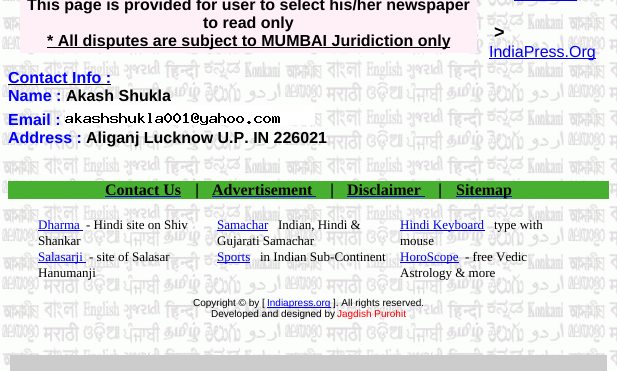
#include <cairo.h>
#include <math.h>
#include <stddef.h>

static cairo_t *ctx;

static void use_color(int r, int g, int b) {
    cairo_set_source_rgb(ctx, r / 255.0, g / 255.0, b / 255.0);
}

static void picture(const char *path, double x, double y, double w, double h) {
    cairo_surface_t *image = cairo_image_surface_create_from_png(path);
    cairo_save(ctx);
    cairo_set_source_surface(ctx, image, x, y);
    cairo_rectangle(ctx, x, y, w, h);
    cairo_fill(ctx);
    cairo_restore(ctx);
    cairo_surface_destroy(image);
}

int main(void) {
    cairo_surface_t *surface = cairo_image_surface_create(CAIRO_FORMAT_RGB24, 617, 371);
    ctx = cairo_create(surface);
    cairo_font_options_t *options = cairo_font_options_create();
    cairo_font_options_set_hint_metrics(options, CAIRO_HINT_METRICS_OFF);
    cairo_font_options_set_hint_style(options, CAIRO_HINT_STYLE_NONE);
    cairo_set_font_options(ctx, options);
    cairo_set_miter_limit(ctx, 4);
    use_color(255, 255, 255);
    cairo_paint(ctx);
    picture("img1.png", 0, 0, 617, 371);
    use_color(255, 240, 248);
    cairo_rectangle(ctx, 20, 0, 457, 53);
    cairo_fill(ctx);
    cairo_select_font_face(ctx, "Liberation Sans", CAIRO_FONT_SLANT_NORMAL, CAIRO_FONT_WEIGHT_BOLD);
    cairo_set_font_size(ctx, 16);
    use_color(0, 0, 0);
    cairo_move_to(ctx, 27, 10);
    cairo_show_text(ctx, "This page is provided for user to select his/her newspaper");
    cairo_move_to(ctx, 203, 28);
    cairo_show_text(ctx, "to read only");
    cairo_rectangle(ctx, 47, 47, 403, 1);
    cairo_fill(ctx);
    cairo_move_to(ctx, 47, 46);
    cairo_show_text(ctx, "* All disputes are subject to MUMBAI Juridiction only");
    use_color(0, 0, 255);
    cairo_move_to(ctx, 8, 83);
    cairo_show_text(ctx, "Contact Info :");
    use_color(0, 0, 0);
    cairo_rectangle(ctx, 8, 84, 103, 1);
    cairo_fill(ctx);
    use_color(0, 0, 255);
    cairo_move_to(ctx, 8, 101);
    cairo_show_text(ctx, "Name :");
    use_color(0, 0, 0);
    cairo_move_to(ctx, 66, 101);
    cairo_show_text(ctx, "Akash Shukla");
    use_color(0, 0, 255);
    cairo_move_to(ctx, 8, 125);
    cairo_show_text(ctx, "Email :");
    picture("img2.png", 65, 105, 250, 20);
    cairo_move_to(ctx, 8, 143);
    cairo_show_text(ctx, "Address :");
    use_color(0, 0, 0);
    cairo_move_to(ctx, 86, 143);
    cairo_show_text(ctx, "Aliganj Lucknow U.P. IN 226021");
    use_color(0, 0, 238);
    cairo_rectangle(ctx, 514, 0, 63, 1);
    cairo_fill(ctx);
    cairo_set_font_size(ctx, 18);
    use_color(0, 0, 0);
    cairo_move_to(ctx, 494, 38);
    cairo_show_text(ctx, ">");
    use_color(0, 0, 238);
    cairo_rectangle(ctx, 489, 58, 107, 1);
    cairo_fill(ctx);
    cairo_select_font_face(ctx, "Liberation Sans", CAIRO_FONT_SLANT_NORMAL, CAIRO_FONT_WEIGHT_NORMAL);
    cairo_set_font_size(ctx, 16);
    cairo_move_to(ctx, 489, 57);
    cairo_show_text(ctx, "IndiaPress.Org");
    use_color(72, 176, 48);
    cairo_rectangle(ctx, 8, 181, 601, 18);
    cairo_fill(ctx);
    cairo_select_font_face(ctx, "Liberation Serif", CAIRO_FONT_SLANT_NORMAL, CAIRO_FONT_WEIGHT_BOLD);
    use_color(0, 0, 0);
    cairo_move_to(ctx, 105, 195);
    cairo_show_text(ctx, "Contact Us");
    use_color(0, 0, 238);
    cairo_rectangle(ctx, 105, 196, 76, 1);
    cairo_fill(ctx);
    cairo_select_font_face(ctx, "Liberation Sans", CAIRO_FONT_SLANT_NORMAL, CAIRO_FONT_WEIGHT_NORMAL);
    use_color(0, 0, 0);
    cairo_move_to(ctx, 195, 195);
    cairo_show_text(ctx, "|");
    cairo_select_font_face(ctx, "Liberation Serif", CAIRO_FONT_SLANT_NORMAL, CAIRO_FONT_WEIGHT_BOLD);
    cairo_move_to(ctx, 212, 195);
    cairo_show_text(ctx, "Advertisement");
    use_color(0, 0, 238);
    cairo_rectangle(ctx, 212, 196, 104, 1);
    cairo_fill(ctx);
    cairo_select_font_face(ctx, "Liberation Sans", CAIRO_FONT_SLANT_NORMAL, CAIRO_FONT_WEIGHT_NORMAL);
    use_color(0, 0, 0);
    cairo_move_to(ctx, 330, 195);
    cairo_show_text(ctx, "|");
    cairo_select_font_face(ctx, "Liberation Serif", CAIRO_FONT_SLANT_NORMAL, CAIRO_FONT_WEIGHT_BOLD);
    cairo_move_to(ctx, 347, 195);
    cairo_show_text(ctx, "Disclaimer");
    use_color(0, 0, 238);
    cairo_rectangle(ctx, 347, 196, 78, 1);
    cairo_fill(ctx);
    cairo_select_font_face(ctx, "Liberation Sans", CAIRO_FONT_SLANT_NORMAL, CAIRO_FONT_WEIGHT_NORMAL);
    use_color(0, 0, 0);
    cairo_move_to(ctx, 438, 195);
    cairo_show_text(ctx, "|");
    use_color(0, 0, 238);
    cairo_rectangle(ctx, 456, 196, 56, 1);
    cairo_fill(ctx);
    cairo_select_font_face(ctx, "Liberation Serif", CAIRO_FONT_SLANT_NORMAL, CAIRO_FONT_WEIGHT_BOLD);
    use_color(0, 0, 0);
    cairo_move_to(ctx, 456, 195);
    cairo_show_text(ctx, "Sitemap");
    cairo_select_font_face(ctx, "Liberation Serif", CAIRO_FONT_SLANT_NORMAL, CAIRO_FONT_WEIGHT_NORMAL);
    cairo_set_font_size(ctx, 13);
    use_color(0, 0, 238);
    cairo_move_to(ctx, 38, 229);
    cairo_show_text(ctx, "Dharma");
    cairo_rectangle(ctx, 38, 230, 45, 1);
    cairo_fill(ctx);
    use_color(0, 0, 0);
    cairo_move_to(ctx, 86, 229);
    cairo_show_text(ctx, "- Hindi site on Shiv");
    cairo_move_to(ctx, 38, 245);
    cairo_show_text(ctx, "Shankar");
    use_color(0, 0, 238);
    cairo_rectangle(ctx, 38, 262, 48, 1);
    cairo_fill(ctx);
    cairo_move_to(ctx, 38, 261);
    cairo_show_text(ctx, "Salasarji");
    use_color(0, 0, 0);
    cairo_move_to(ctx, 89, 261);
    cairo_show_text(ctx, "- site of Salasar");
    cairo_move_to(ctx, 38, 277);
    cairo_show_text(ctx, "Hanumanji");
    use_color(0, 0, 238);
    cairo_move_to(ctx, 217, 229);
    cairo_show_text(ctx, "Samachar");
    cairo_rectangle(ctx, 217, 230, 51, 1);
    cairo_fill(ctx);
    use_color(0, 0, 0);
    cairo_move_to(ctx, 278, 229);
    cairo_show_text(ctx, "Indian, Hindi &");
    cairo_move_to(ctx, 217, 245);
    cairo_show_text(ctx, "Gujarati Samachar");
    use_color(0, 0, 238);
    cairo_rectangle(ctx, 217, 262, 33, 1);
    cairo_fill(ctx);
    cairo_move_to(ctx, 217, 261);
    cairo_show_text(ctx, "Sports");
    use_color(0, 0, 0);
    cairo_move_to(ctx, 260, 261);
    cairo_show_text(ctx, "in Indian Sub-Continent");
    use_color(0, 0, 238);
    cairo_rectangle(ctx, 400, 230, 85, 1);
    cairo_fill(ctx);
    cairo_move_to(ctx, 400, 229);
    cairo_show_text(ctx, "Hindi Keyboard");
    use_color(0, 0, 0);
    cairo_move_to(ctx, 494, 229);
    cairo_show_text(ctx, "type with");
    cairo_move_to(ctx, 400, 245);
    cairo_show_text(ctx, "mouse");
    use_color(0, 0, 238);
    cairo_rectangle(ctx, 400, 262, 59, 1);
    cairo_fill(ctx);
    cairo_move_to(ctx, 400, 261);
    cairo_show_text(ctx, "HoroScope");
    use_color(0, 0, 0);
    cairo_move_to(ctx, 465, 261);
    cairo_show_text(ctx, "- free Vedic");
    cairo_move_to(ctx, 400, 277);
    cairo_show_text(ctx, "Astrology & more");
    cairo_select_font_face(ctx, "Liberation Sans", CAIRO_FONT_SLANT_NORMAL, CAIRO_FONT_WEIGHT_NORMAL);
    cairo_set_font_size(ctx, 10);
    cairo_move_to(ctx, 193, 306);
    cairo_show_text(ctx, "Copyright © by [");
    use_color(0, 0, 238);
    cairo_rectangle(ctx, 267, 307, 64, 1);
    cairo_fill(ctx);
    cairo_move_to(ctx, 267, 306);
    cairo_show_text(ctx, "Indiapress.org");
    use_color(0, 0, 0);
    cairo_move_to(ctx, 333, 306);
    cairo_show_text(ctx, "]. All rights reserved.");
    cairo_move_to(ctx, 211, 317);
    cairo_show_text(ctx, "Developed and designed by");
    use_color(255, 0, 0);
    cairo_move_to(ctx, 337, 317);
    cairo_show_text(ctx, "Jagdish Purohit");
    use_color(204, 204, 204);
    cairo_rectangle(ctx, 10, 355, 597, 16);
    cairo_fill(ctx);
    cairo_surface_write_to_png(surface, "result.png");
    cairo_font_options_destroy(options);
    cairo_destroy(ctx);
    cairo_surface_destroy(surface);
    return 0;
}
